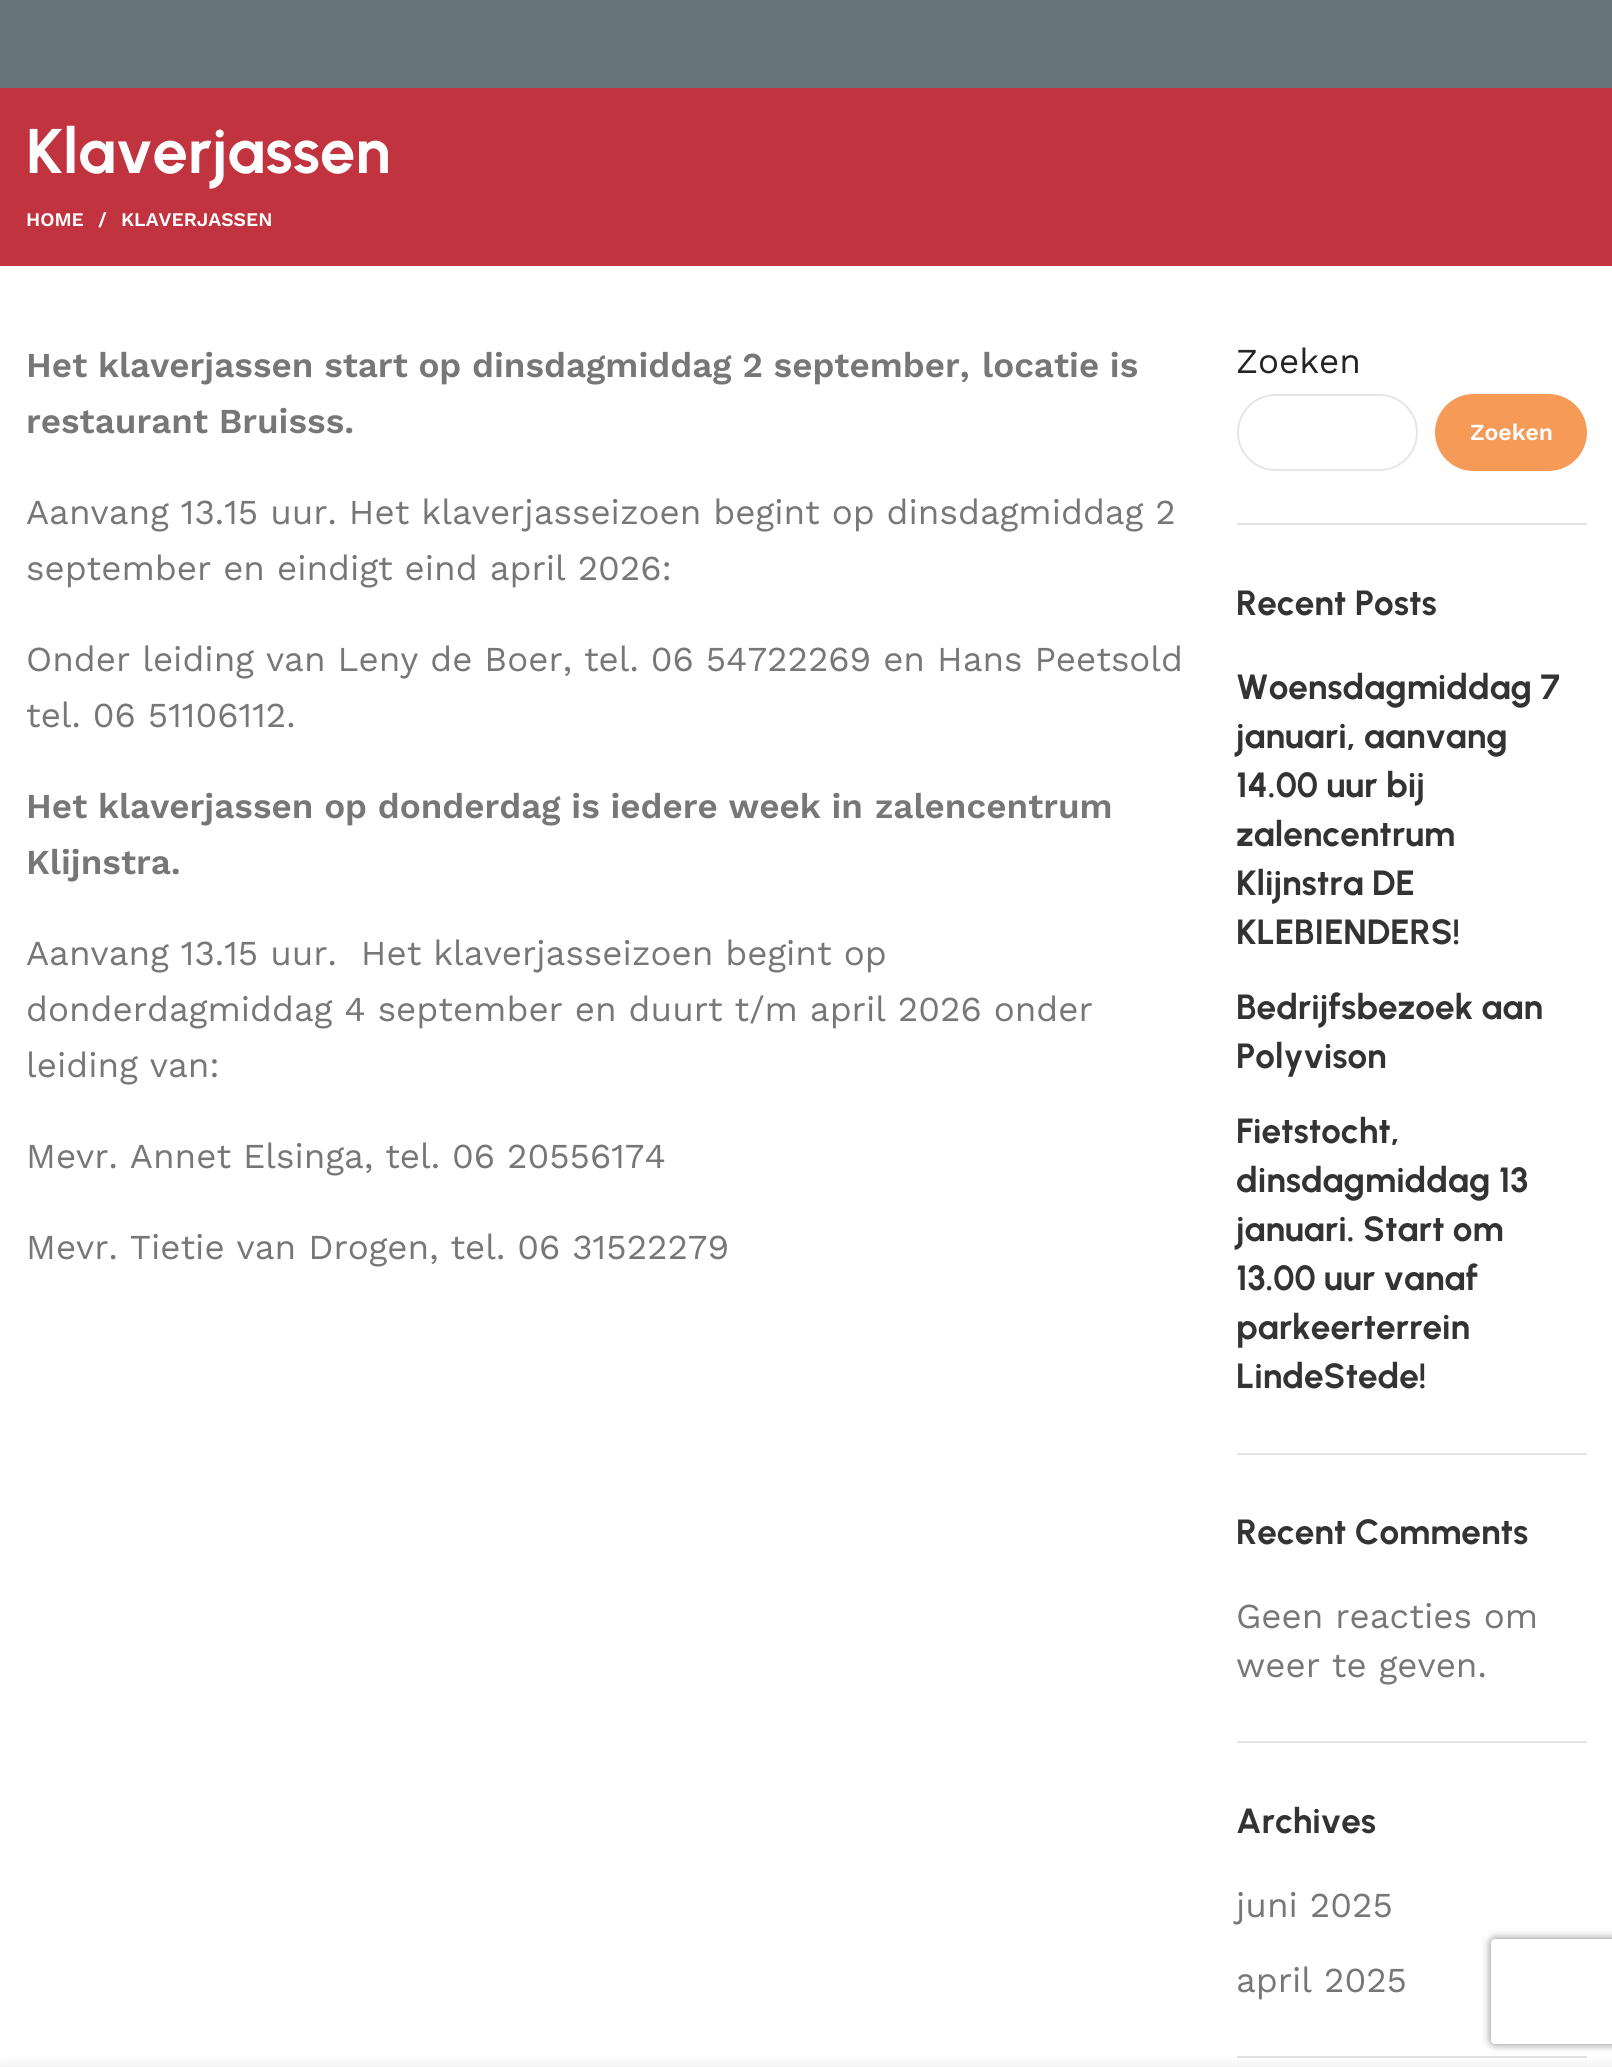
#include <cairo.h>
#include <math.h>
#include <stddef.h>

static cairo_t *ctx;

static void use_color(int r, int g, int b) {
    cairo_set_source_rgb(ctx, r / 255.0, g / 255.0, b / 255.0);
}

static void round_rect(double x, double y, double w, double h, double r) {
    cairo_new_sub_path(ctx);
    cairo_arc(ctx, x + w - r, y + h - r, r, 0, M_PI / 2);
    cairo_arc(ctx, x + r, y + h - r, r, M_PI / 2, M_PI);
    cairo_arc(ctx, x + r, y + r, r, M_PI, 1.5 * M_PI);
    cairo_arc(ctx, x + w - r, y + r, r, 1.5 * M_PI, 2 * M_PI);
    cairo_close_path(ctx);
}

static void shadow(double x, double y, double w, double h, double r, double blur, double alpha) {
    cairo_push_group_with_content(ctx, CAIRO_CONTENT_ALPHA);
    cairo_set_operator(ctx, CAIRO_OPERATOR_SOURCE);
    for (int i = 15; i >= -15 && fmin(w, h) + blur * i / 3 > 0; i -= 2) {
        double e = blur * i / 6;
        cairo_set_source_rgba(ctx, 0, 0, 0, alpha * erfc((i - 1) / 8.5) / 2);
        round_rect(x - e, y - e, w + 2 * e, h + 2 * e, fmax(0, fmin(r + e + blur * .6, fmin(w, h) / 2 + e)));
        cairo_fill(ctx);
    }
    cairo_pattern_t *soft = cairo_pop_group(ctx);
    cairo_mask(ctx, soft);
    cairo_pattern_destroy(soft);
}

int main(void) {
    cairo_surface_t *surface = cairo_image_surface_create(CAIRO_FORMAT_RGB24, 1612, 2067);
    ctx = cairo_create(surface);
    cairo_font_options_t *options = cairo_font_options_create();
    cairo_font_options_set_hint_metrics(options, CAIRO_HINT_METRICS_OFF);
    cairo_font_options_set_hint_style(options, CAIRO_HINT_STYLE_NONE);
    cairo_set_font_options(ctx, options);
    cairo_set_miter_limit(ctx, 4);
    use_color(255, 255, 255);
    cairo_paint(ctx);
    use_color(104, 117, 125);
    cairo_rectangle(ctx, 0, 0, 1612, 88);
    cairo_fill(ctx);
    use_color(193, 51, 62);
    cairo_rectangle(ctx, 0, 88, 1612, 178);
    cairo_fill(ctx);
    cairo_select_font_face(ctx, "Urbanist", CAIRO_FONT_SLANT_NORMAL, CAIRO_FONT_WEIGHT_BOLD);
    cairo_set_font_size(ctx, 63);
    use_color(255, 255, 255);
    cairo_move_to(ctx, 26, 173);
    cairo_show_text(ctx, "Klaverjassen");
    cairo_select_font_face(ctx, "Work Sans SemiBold", CAIRO_FONT_SLANT_NORMAL, CAIRO_FONT_WEIGHT_NORMAL);
    cairo_set_font_size(ctx, 19.25);
    cairo_move_to(ctx, 26, 226);
    cairo_show_text(ctx, "HOME");
    cairo_move_to(ctx, 98, 226);
    cairo_show_text(ctx, "/");
    cairo_move_to(ctx, 121, 226);
    cairo_show_text(ctx, "KLAVERJASSEN");
    cairo_set_font_size(ctx, 35);
    use_color(119, 119, 119);
    cairo_move_to(ctx, 26, 377);
    cairo_show_text(ctx, "Het klaverjassen start op dinsdagmiddag 2 september,");
    cairo_move_to(ctx, 982, 377);
    cairo_show_text(ctx, "locatie is");
    cairo_move_to(ctx, 26, 433);
    cairo_show_text(ctx, "restaurant Bruisss.");
    cairo_select_font_face(ctx, "Work Sans", CAIRO_FONT_SLANT_NORMAL, CAIRO_FONT_WEIGHT_NORMAL);
    cairo_move_to(ctx, 26, 524);
    cairo_show_text(ctx, "Aanvang 13.15 uur. Het klaverjasseizoen begint op dinsdagmiddag 2");
    cairo_move_to(ctx, 26, 580);
    cairo_show_text(ctx, "september en eindigt eind april 2026:");
    cairo_move_to(ctx, 26, 671);
    cairo_show_text(ctx, "Onder leiding van Leny de Boer, tel. 06 54722269 en Hans Peetsold");
    cairo_move_to(ctx, 26, 727);
    cairo_show_text(ctx, "tel. 06 51106112.");
    cairo_select_font_face(ctx, "Work Sans SemiBold", CAIRO_FONT_SLANT_NORMAL, CAIRO_FONT_WEIGHT_NORMAL);
    cairo_move_to(ctx, 26, 818);
    cairo_show_text(ctx, "Het klaverjassen op donderdag is iedere week in");
    cairo_move_to(ctx, 875, 818);
    cairo_show_text(ctx, "zalencentrum");
    cairo_move_to(ctx, 26, 874);
    cairo_show_text(ctx, "Klijnstra.");
    cairo_select_font_face(ctx, "Work Sans", CAIRO_FONT_SLANT_NORMAL, CAIRO_FONT_WEIGHT_NORMAL);
    cairo_move_to(ctx, 26, 965);
    cairo_show_text(ctx, "Aanvang 13.15 uur.  Het klaverjasseizoen begint op");
    cairo_move_to(ctx, 26, 1021);
    cairo_show_text(ctx, "donderdagmiddag 4 september en duurt t/m april 2026 onder");
    cairo_move_to(ctx, 26, 1077);
    cairo_show_text(ctx, "leiding van:");
    cairo_move_to(ctx, 26, 1168);
    cairo_show_text(ctx, "Mevr. Annet Elsinga, tel. 06 20556174");
    cairo_move_to(ctx, 26, 1259);
    cairo_show_text(ctx, "Mevr. Tietie van Drogen, tel. 06 31522279");
    use_color(228, 228, 228);
    cairo_rectangle(ctx, 1237, 523, 350, 2);
    cairo_fill(ctx);
    use_color(36, 36, 36);
    cairo_move_to(ctx, 1236, 373);
    cairo_show_text(ctx, "Zoeken");
    round_rect(1238, 395, 179, 75, 37.5);
    use_color(230, 230, 230);
    cairo_stroke(ctx);
    use_color(245, 154, 87);
    round_rect(1435, 394, 152, 77, 38.5);
    cairo_fill(ctx);
    cairo_select_font_face(ctx, "Work Sans SemiBold", CAIRO_FONT_SLANT_NORMAL, CAIRO_FONT_WEIGHT_NORMAL);
    cairo_set_font_size(ctx, 23);
    use_color(255, 255, 255);
    cairo_move_to(ctx, 1470, 440);
    cairo_show_text(ctx, "Zoeken");
    use_color(228, 228, 228);
    cairo_rectangle(ctx, 1237, 1453, 350, 2);
    cairo_fill(ctx);
    cairo_select_font_face(ctx, "Urbanist", CAIRO_FONT_SLANT_NORMAL, CAIRO_FONT_WEIGHT_BOLD);
    cairo_set_font_size(ctx, 35);
    use_color(51, 51, 51);
    cairo_move_to(ctx, 1236, 615);
    cairo_show_text(ctx, "Recent Posts");
    cairo_move_to(ctx, 1236, 699);
    cairo_show_text(ctx, "Woensdagmiddag 7");
    cairo_move_to(ctx, 1236, 748);
    cairo_show_text(ctx, "januari, aanvang");
    cairo_move_to(ctx, 1236, 797);
    cairo_show_text(ctx, "14.00 uur bij");
    cairo_move_to(ctx, 1236, 846);
    cairo_show_text(ctx, "zalencentrum");
    cairo_move_to(ctx, 1236, 895);
    cairo_show_text(ctx, "Klijnstra DE");
    cairo_move_to(ctx, 1236, 944);
    cairo_show_text(ctx, "KLEBIENDERS!");
    cairo_move_to(ctx, 1236, 1019);
    cairo_show_text(ctx, "Bedrijfsbezoek aan");
    cairo_move_to(ctx, 1236, 1068);
    cairo_show_text(ctx, "Polyvison");
    cairo_move_to(ctx, 1236, 1143);
    cairo_show_text(ctx, "Fietstocht,");
    cairo_move_to(ctx, 1236, 1192);
    cairo_show_text(ctx, "dinsdagmiddag 13");
    cairo_move_to(ctx, 1236, 1241);
    cairo_show_text(ctx, "januari. Start om");
    cairo_move_to(ctx, 1236, 1290);
    cairo_show_text(ctx, "13.00 uur vanaf");
    cairo_move_to(ctx, 1236, 1339);
    cairo_show_text(ctx, "parkeerterrein");
    cairo_move_to(ctx, 1236, 1388);
    cairo_show_text(ctx, "LindeStede!");
    use_color(228, 228, 228);
    cairo_rectangle(ctx, 1237, 1741, 350, 2);
    cairo_fill(ctx);
    use_color(51, 51, 51);
    cairo_move_to(ctx, 1236, 1544);
    cairo_show_text(ctx, "Recent Comments");
    cairo_select_font_face(ctx, "Work Sans", CAIRO_FONT_SLANT_NORMAL, CAIRO_FONT_WEIGHT_NORMAL);
    use_color(119, 119, 119);
    cairo_move_to(ctx, 1236, 1628);
    cairo_show_text(ctx, "Geen reacties om");
    cairo_move_to(ctx, 1236, 1677);
    cairo_show_text(ctx, "weer te geven.");
    use_color(228, 228, 228);
    cairo_rectangle(ctx, 1237, 2056, 350, 2);
    cairo_fill(ctx);
    cairo_select_font_face(ctx, "Urbanist", CAIRO_FONT_SLANT_NORMAL, CAIRO_FONT_WEIGHT_BOLD);
    use_color(51, 51, 51);
    cairo_move_to(ctx, 1236, 1833);
    cairo_show_text(ctx, "Archives");
    cairo_select_font_face(ctx, "Work Sans", CAIRO_FONT_SLANT_NORMAL, CAIRO_FONT_WEIGHT_NORMAL);
    use_color(119, 119, 119);
    cairo_move_to(ctx, 1236, 1917);
    cairo_show_text(ctx, "juni 2025");
    cairo_move_to(ctx, 1236, 1992);
    cairo_show_text(ctx, "april 2025");
    cairo_save(ctx);
    cairo_set_fill_rule(ctx, CAIRO_FILL_RULE_EVEN_ODD);
    cairo_new_path(ctx);
    cairo_move_to(ctx, 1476, 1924);
    cairo_line_to(ctx, 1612, 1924);
    cairo_line_to(ctx, 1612, 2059);
    cairo_line_to(ctx, 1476, 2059);
    cairo_close_path(ctx);
    cairo_move_to(ctx, 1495, 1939);
    cairo_line_to(ctx, 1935, 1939);
    cairo_curve_to(ctx, 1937, 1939, 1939, 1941, 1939, 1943);
    cairo_line_to(ctx, 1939, 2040);
    cairo_curve_to(ctx, 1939, 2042, 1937, 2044, 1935, 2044);
    cairo_line_to(ctx, 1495, 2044);
    cairo_curve_to(ctx, 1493, 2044, 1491, 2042, 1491, 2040);
    cairo_line_to(ctx, 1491, 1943);
    cairo_curve_to(ctx, 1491, 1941, 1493, 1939, 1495, 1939);
    cairo_close_path(ctx);
    cairo_clip(ctx);
    use_color(128, 128, 128);
    shadow(1491, 1939, 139, 105, 4, 4.5, 1);
    cairo_restore(ctx);
    use_color(0, 0, 0);
    shadow(0, 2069, 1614, 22, 0, 8, 0.14);
    cairo_surface_write_to_png(surface, "result.png");
    cairo_font_options_destroy(options);
    cairo_destroy(ctx);
    cairo_surface_destroy(surface);
    return 0;
}
